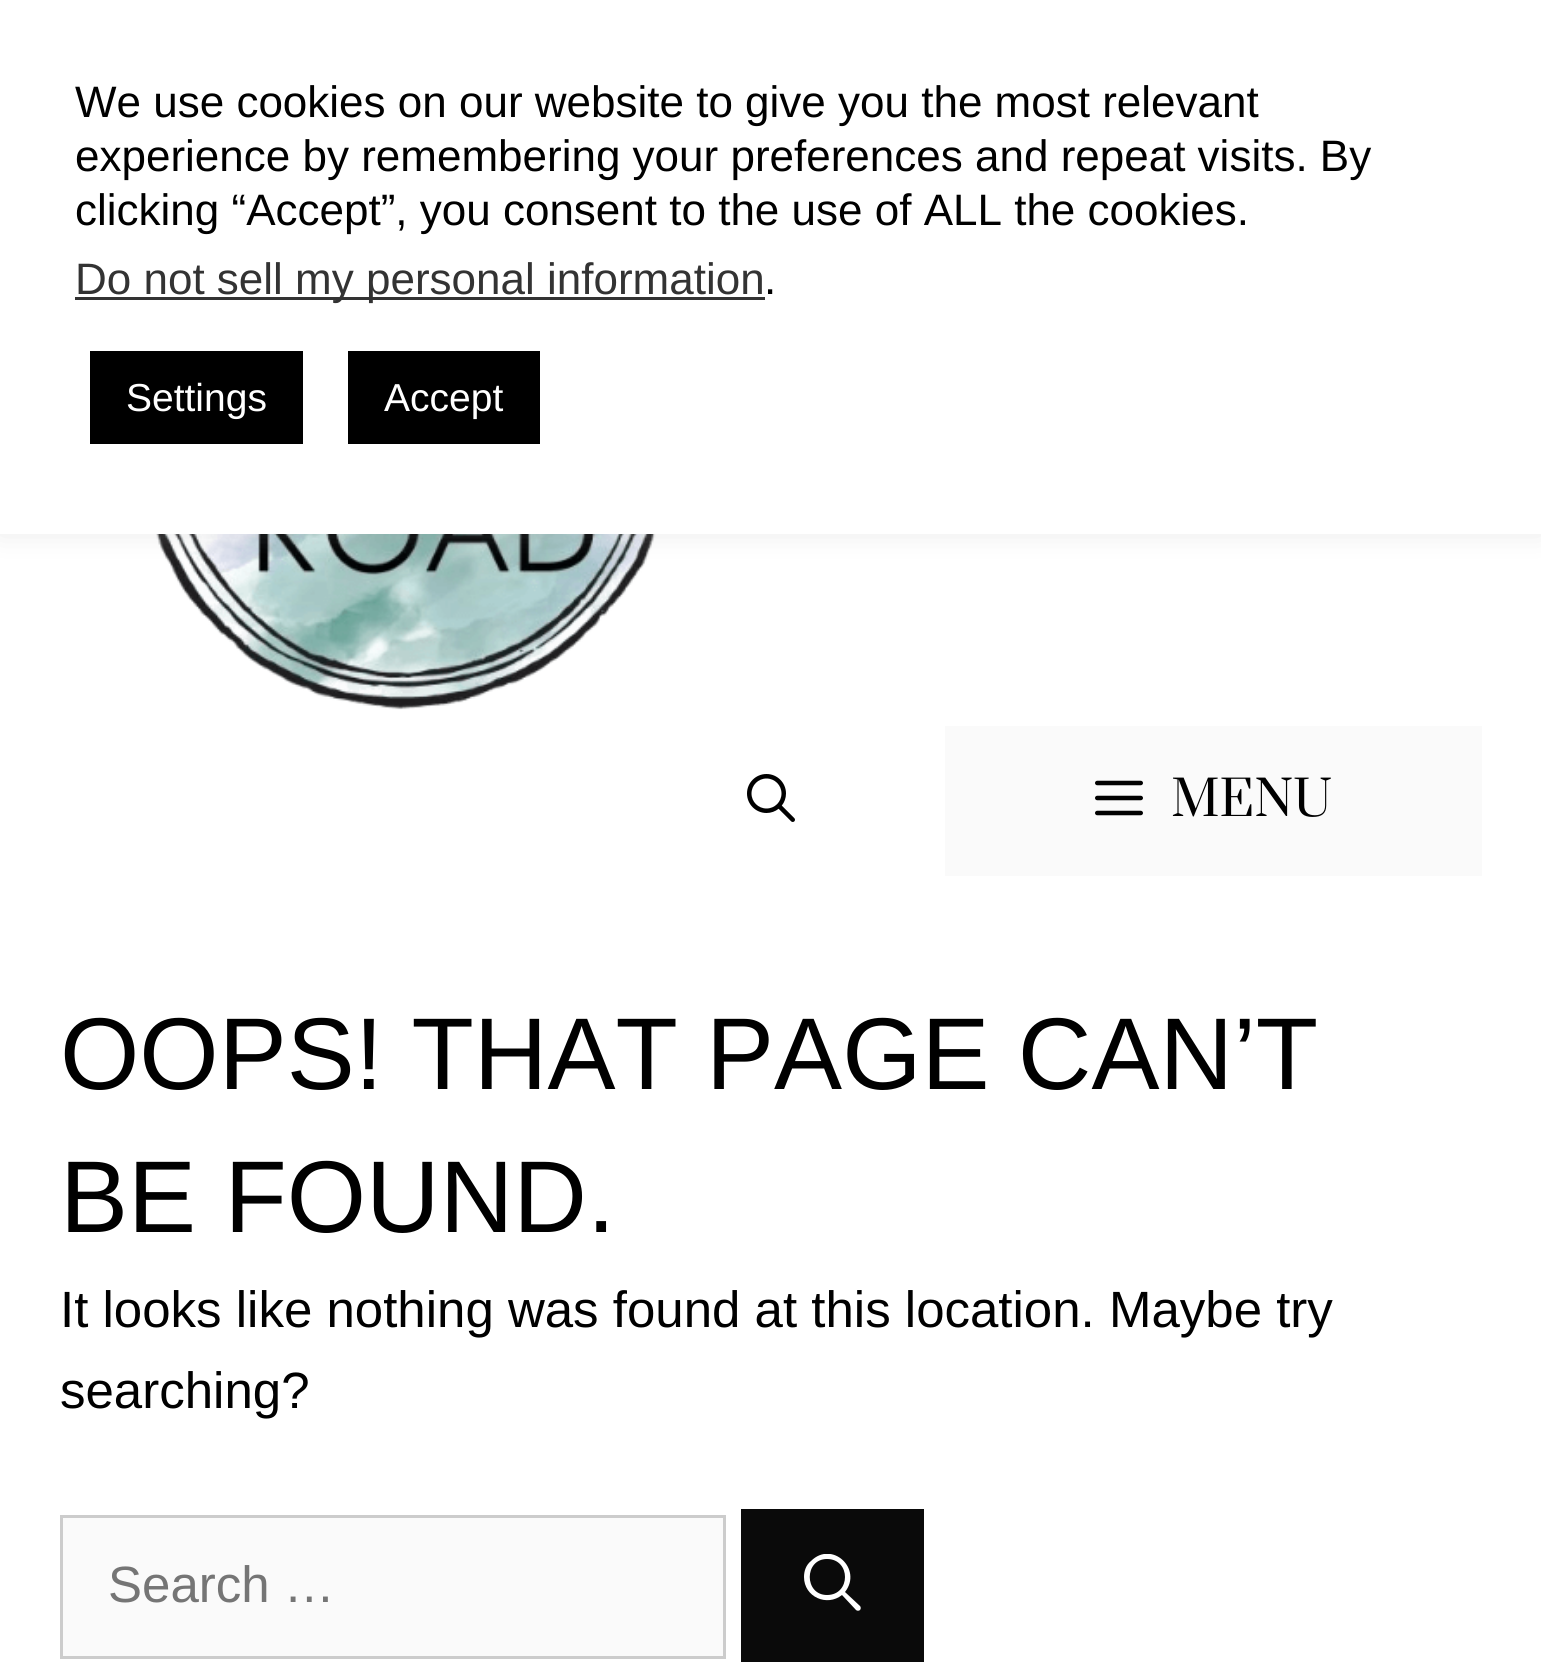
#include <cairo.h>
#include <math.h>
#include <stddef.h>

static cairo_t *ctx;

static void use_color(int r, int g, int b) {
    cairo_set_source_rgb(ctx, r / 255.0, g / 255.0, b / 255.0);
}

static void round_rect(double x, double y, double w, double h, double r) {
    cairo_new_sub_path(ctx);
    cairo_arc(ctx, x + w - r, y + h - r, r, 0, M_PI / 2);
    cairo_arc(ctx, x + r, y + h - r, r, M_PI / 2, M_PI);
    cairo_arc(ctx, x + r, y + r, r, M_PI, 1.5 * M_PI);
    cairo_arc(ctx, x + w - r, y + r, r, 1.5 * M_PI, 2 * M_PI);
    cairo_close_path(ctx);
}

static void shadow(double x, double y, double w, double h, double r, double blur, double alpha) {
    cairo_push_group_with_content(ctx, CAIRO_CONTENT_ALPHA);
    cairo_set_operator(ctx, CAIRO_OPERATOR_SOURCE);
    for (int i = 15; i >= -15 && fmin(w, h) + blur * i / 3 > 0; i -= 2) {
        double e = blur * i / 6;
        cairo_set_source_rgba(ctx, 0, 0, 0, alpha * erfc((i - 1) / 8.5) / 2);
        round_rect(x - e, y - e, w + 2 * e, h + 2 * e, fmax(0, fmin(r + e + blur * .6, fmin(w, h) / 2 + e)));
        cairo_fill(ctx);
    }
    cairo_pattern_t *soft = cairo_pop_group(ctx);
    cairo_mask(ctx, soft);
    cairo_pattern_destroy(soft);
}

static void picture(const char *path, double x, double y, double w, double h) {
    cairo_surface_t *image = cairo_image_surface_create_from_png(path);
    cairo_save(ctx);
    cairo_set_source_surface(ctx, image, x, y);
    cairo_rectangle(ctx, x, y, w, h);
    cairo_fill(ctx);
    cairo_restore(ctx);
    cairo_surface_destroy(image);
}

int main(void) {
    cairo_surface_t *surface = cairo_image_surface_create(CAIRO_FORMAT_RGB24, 1541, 1672);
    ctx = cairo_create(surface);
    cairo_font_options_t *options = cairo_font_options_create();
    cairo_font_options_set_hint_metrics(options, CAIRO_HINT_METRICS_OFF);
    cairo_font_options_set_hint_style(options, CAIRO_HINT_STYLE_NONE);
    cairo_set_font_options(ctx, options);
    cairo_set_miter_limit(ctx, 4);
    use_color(255, 255, 255);
    cairo_paint(ctx);
    picture("img1.png", 155, 534, 501, 176);
    use_color(172, 171, 171);
    shadow(0, -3, 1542, 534, 0, 15, 0.3);
    use_color(255, 255, 255);
    cairo_rectangle(ctx, 0, 0, 1541, 534);
    cairo_fill(ctx);
    cairo_select_font_face(ctx, "Liberation Sans", CAIRO_FONT_SLANT_NORMAL, CAIRO_FONT_WEIGHT_NORMAL);
    cairo_set_font_size(ctx, 44);
    use_color(0, 0, 0);
    cairo_move_to(ctx, 75, 117);
    cairo_show_text(ctx, "We use cookies on our website to give you the most relevant");
    cairo_move_to(ctx, 75, 171);
    cairo_show_text(ctx, "experience by remembering your preferences and repeat visits. By");
    cairo_move_to(ctx, 75, 225);
    cairo_show_text(ctx, "clicking “Accept”, you consent to the use of ALL the cookies.");
    use_color(51, 51, 51);
    cairo_rectangle(ctx, 75, 297, 690, 3);
    cairo_fill(ctx);
    cairo_move_to(ctx, 75, 294);
    cairo_show_text(ctx, "Do not sell my personal information");
    use_color(0, 0, 0);
    cairo_move_to(ctx, 764, 294);
    cairo_show_text(ctx, ".");
    cairo_rectangle(ctx, 90, 351, 213, 93);
    cairo_fill(ctx);
    cairo_set_font_size(ctx, 39);
    use_color(255, 255, 255);
    cairo_move_to(ctx, 126, 411);
    cairo_show_text(ctx, "Settings");
    use_color(0, 0, 0);
    cairo_rectangle(ctx, 348, 351, 192, 93);
    cairo_fill(ctx);
    use_color(255, 255, 255);
    cairo_move_to(ctx, 384, 411);
    cairo_show_text(ctx, "Accept");
    picture("img2.png", 747, 774, 48, 48);
    use_color(250, 250, 250);
    cairo_rectangle(ctx, 945, 726, 537, 150);
    cairo_fill(ctx);
    picture("img3.png", 1095, 780, 48, 36);
    cairo_select_font_face(ctx, "Prata", CAIRO_FONT_SLANT_NORMAL, CAIRO_FONT_WEIGHT_NORMAL);
    cairo_set_font_size(ctx, 48);
    use_color(0, 0, 0);
    cairo_move_to(ctx, 1171, 816);
    cairo_show_text(ctx, "MENU");
    cairo_select_font_face(ctx, "Liberation Sans", CAIRO_FONT_SLANT_NORMAL, CAIRO_FONT_WEIGHT_NORMAL);
    cairo_set_font_size(ctx, 102);
    cairo_move_to(ctx, 60, 1089);
    cairo_show_text(ctx, "OOPS! THAT PAGE CAN’T");
    cairo_move_to(ctx, 60, 1232);
    cairo_show_text(ctx, "BE FOUND.");
    cairo_set_font_size(ctx, 51);
    cairo_move_to(ctx, 60, 1327);
    cairo_show_text(ctx, "It looks like nothing was found at this location. Maybe try");
    cairo_move_to(ctx, 60, 1408);
    cairo_show_text(ctx, "searching?");
    use_color(250, 250, 250);
    cairo_rectangle(ctx, 61.5, 1516.5, 663, 141);
    cairo_fill_preserve(ctx);
    use_color(204, 204, 204);
    cairo_set_line_width(ctx, 3);
    cairo_stroke(ctx);
    use_color(117, 117, 117);
    cairo_move_to(ctx, 108, 1602);
    cairo_show_text(ctx, "Search …");
    use_color(10, 10, 10);
    cairo_rectangle(ctx, 741, 1509, 183, 153);
    cairo_fill(ctx);
    cairo_save(ctx);
    cairo_rectangle(ctx, 804, 1554, 57, 57);
    cairo_clip(ctx);
    use_color(255, 255, 255);
    cairo_set_fill_rule(ctx, CAIRO_FILL_RULE_EVEN_ODD);
    cairo_new_path(ctx);
    cairo_move_to(ctx, 827, 1559);
    cairo_curve_to(ctx, 804, 1559, 804, 1595, 827, 1595);
    cairo_curve_to(ctx, 851, 1595, 851, 1559, 827, 1559);
    cairo_close_path(ctx);
    cairo_move_to(ctx, 804, 1577);
    cairo_curve_to(ctx, 804, 1571, 806, 1565, 811, 1561);
    cairo_curve_to(ctx, 832, 1540, 863, 1569, 845, 1592);
    cairo_line_to(ctx, 860, 1606);
    cairo_curve_to(ctx, 861, 1607, 861, 1609, 860, 1610);
    cairo_curve_to(ctx, 859, 1611, 857, 1611, 856, 1610);
    cairo_line_to(ctx, 842, 1595);
    cairo_curve_to(ctx, 827, 1607, 804, 1597, 804, 1577);
    cairo_close_path(ctx);
    cairo_fill(ctx);
    cairo_restore(ctx);
    cairo_surface_write_to_png(surface, "result.png");
    cairo_font_options_destroy(options);
    cairo_destroy(ctx);
    cairo_surface_destroy(surface);
    return 0;
}
